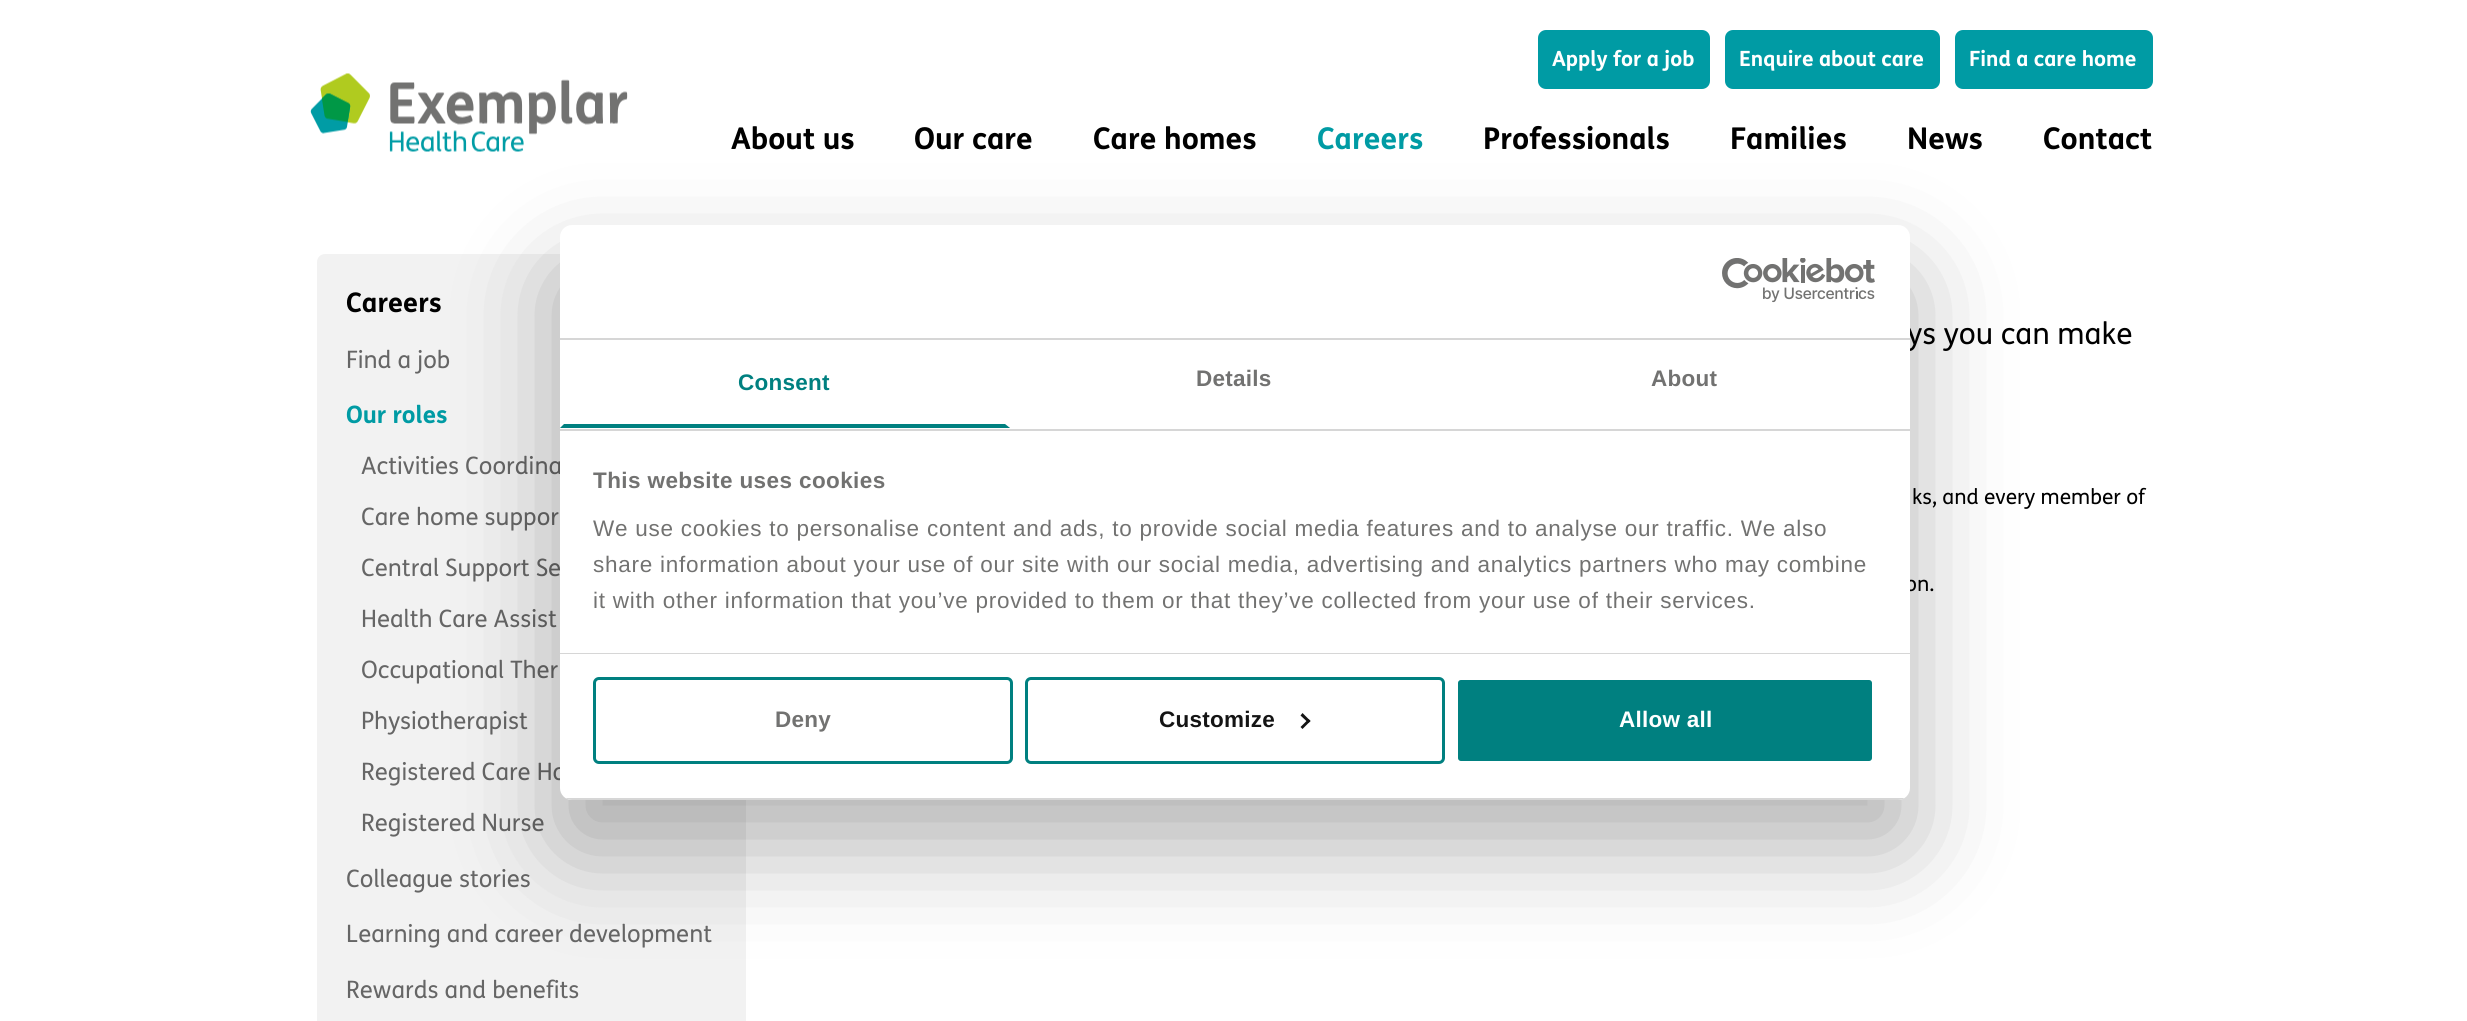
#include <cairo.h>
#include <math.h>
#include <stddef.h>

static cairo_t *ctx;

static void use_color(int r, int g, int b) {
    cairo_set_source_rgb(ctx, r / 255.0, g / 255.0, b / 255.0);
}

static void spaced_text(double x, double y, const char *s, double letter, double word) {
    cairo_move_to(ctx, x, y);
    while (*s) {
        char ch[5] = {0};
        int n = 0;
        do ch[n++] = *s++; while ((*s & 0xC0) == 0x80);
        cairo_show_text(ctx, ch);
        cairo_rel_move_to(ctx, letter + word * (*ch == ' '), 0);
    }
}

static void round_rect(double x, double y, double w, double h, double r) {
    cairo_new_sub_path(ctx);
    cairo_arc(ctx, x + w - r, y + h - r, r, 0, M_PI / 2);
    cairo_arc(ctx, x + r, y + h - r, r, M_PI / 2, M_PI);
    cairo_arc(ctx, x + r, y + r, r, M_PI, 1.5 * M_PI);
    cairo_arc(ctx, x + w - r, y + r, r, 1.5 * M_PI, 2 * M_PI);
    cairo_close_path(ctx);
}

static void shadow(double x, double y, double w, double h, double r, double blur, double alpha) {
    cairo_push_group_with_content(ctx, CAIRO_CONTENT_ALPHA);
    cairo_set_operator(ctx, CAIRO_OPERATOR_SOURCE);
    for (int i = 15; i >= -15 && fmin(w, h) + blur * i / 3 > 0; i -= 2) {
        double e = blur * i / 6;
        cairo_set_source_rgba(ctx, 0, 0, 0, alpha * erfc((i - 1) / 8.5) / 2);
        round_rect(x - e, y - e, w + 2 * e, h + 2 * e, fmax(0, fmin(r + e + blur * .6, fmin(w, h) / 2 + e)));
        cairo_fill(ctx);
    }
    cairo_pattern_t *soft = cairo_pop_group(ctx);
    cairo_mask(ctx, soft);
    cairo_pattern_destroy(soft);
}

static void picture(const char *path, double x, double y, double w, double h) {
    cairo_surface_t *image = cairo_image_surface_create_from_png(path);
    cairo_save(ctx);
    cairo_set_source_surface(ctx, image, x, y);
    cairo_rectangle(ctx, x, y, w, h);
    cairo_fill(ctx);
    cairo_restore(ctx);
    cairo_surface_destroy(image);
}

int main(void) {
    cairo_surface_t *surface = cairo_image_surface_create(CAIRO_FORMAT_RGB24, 2467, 1021);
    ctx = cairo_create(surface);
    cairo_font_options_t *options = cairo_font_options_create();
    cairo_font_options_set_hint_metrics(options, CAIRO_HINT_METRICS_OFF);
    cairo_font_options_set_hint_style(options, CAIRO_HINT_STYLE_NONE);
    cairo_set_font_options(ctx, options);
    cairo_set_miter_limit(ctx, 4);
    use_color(255, 255, 255);
    cairo_paint(ctx);
    use_color(0, 155, 164);
    round_rect(1538, 30, 172, 59, 8);
    cairo_fill(ctx);
    cairo_select_font_face(ctx, "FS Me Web", CAIRO_FONT_SLANT_NORMAL, CAIRO_FONT_WEIGHT_BOLD);
    cairo_set_font_size(ctx, 21);
    use_color(255, 255, 255);
    cairo_move_to(ctx, 1552, 66);
    cairo_show_text(ctx, "Apply for a job");
    use_color(0, 155, 164);
    round_rect(1725, 30, 215, 59, 8);
    cairo_fill(ctx);
    use_color(255, 255, 255);
    cairo_move_to(ctx, 1739, 66);
    cairo_show_text(ctx, "Enquire about care");
    use_color(0, 155, 164);
    round_rect(1955, 30, 198, 59, 8);
    cairo_fill(ctx);
    use_color(255, 255, 255);
    cairo_move_to(ctx, 1969, 66);
    cairo_show_text(ctx, "Find a care home");
    picture("img1.png", 310, 73, 318, 79);
    cairo_set_font_size(ctx, 30);
    use_color(0, 0, 0);
    cairo_move_to(ctx, 731, 149);
    cairo_show_text(ctx, "About us");
    cairo_move_to(ctx, 914, 149);
    cairo_show_text(ctx, "Our care");
    cairo_move_to(ctx, 1093, 149);
    cairo_show_text(ctx, "Care homes");
    use_color(0, 155, 164);
    cairo_move_to(ctx, 1317, 149);
    cairo_show_text(ctx, "Careers");
    use_color(0, 0, 0);
    cairo_move_to(ctx, 1483, 149);
    cairo_show_text(ctx, "Professionals");
    cairo_move_to(ctx, 1730, 149);
    cairo_show_text(ctx, "Families");
    cairo_move_to(ctx, 1907, 149);
    cairo_show_text(ctx, "News");
    cairo_move_to(ctx, 2043, 149);
    cairo_show_text(ctx, "Contact");
    use_color(242, 242, 242);
    round_rect(317, 254, 429, 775, 8);
    cairo_fill(ctx);
    cairo_set_font_size(ctx, 27);
    use_color(0, 0, 0);
    cairo_move_to(ctx, 346, 312);
    cairo_show_text(ctx, "Careers");
    cairo_select_font_face(ctx, "FS Me Web", CAIRO_FONT_SLANT_NORMAL, CAIRO_FONT_WEIGHT_NORMAL);
    cairo_set_font_size(ctx, 24);
    use_color(102, 102, 102);
    cairo_move_to(ctx, 346, 368);
    cairo_show_text(ctx, "Find a job");
    cairo_select_font_face(ctx, "FS Me Web", CAIRO_FONT_SLANT_NORMAL, CAIRO_FONT_WEIGHT_BOLD);
    use_color(0, 155, 164);
    cairo_move_to(ctx, 346, 423);
    cairo_show_text(ctx, "Our roles");
    cairo_select_font_face(ctx, "FS Me Web", CAIRO_FONT_SLANT_NORMAL, CAIRO_FONT_WEIGHT_NORMAL);
    use_color(102, 102, 102);
    cairo_move_to(ctx, 361, 474);
    cairo_show_text(ctx, "Activities Coordina");
    cairo_move_to(ctx, 361, 525);
    cairo_show_text(ctx, "Care home suppor");
    cairo_move_to(ctx, 361, 576);
    cairo_show_text(ctx, "Central Support Se");
    cairo_move_to(ctx, 361, 627);
    cairo_show_text(ctx, "Health Care Assist");
    cairo_move_to(ctx, 361, 678);
    cairo_show_text(ctx, "Occupational Ther");
    cairo_move_to(ctx, 361, 729);
    cairo_show_text(ctx, "Physiotherapist");
    cairo_move_to(ctx, 361, 780);
    cairo_show_text(ctx, "Registered Care Ho");
    cairo_move_to(ctx, 361, 831);
    cairo_show_text(ctx, "Registered Nurse");
    cairo_move_to(ctx, 346, 887);
    cairo_show_text(ctx, "Colleague stories");
    cairo_move_to(ctx, 346, 942);
    cairo_show_text(ctx, "Learning and career development");
    cairo_move_to(ctx, 346, 998);
    cairo_show_text(ctx, "Rewards and benefits");
    cairo_set_font_size(ctx, 30);
    use_color(0, 0, 0);
    cairo_move_to(ctx, 1907, 344);
    cairo_show_text(ctx, "ys you can make");
    cairo_set_font_size(ctx, 21);
    cairo_move_to(ctx, 1912, 504);
    cairo_show_text(ctx, "ks, and every member of");
    cairo_move_to(ctx, 1905, 591);
    cairo_show_text(ctx, "on.");
    use_color(0, 0, 0);
    shadow(560, 273, 1350, 575, 12, 51, 0.3);
    use_color(255, 255, 255);
    round_rect(560, 225, 1350, 575, 12);
    cairo_fill(ctx);
    use_color(214, 214, 214);
    cairo_rectangle(ctx, 560, 338, 1350, 2);
    cairo_fill(ctx);
    picture("img2.png", 1722, 258, 153, 45);
    cairo_rectangle(ctx, 560, 429, 1350, 2);
    cairo_fill(ctx);
    use_color(0, 128, 128);
    cairo_new_path(ctx);
    cairo_move_to(ctx, 1010, 428);
    cairo_line_to(ctx, 560, 428);
    cairo_line_to(ctx, 564, 424);
    cairo_line_to(ctx, 1005, 424);
    cairo_close_path(ctx);
    cairo_fill(ctx);
    cairo_select_font_face(ctx, "Liberation Sans", CAIRO_FONT_SLANT_NORMAL, CAIRO_FONT_WEIGHT_BOLD);
    cairo_set_font_size(ctx, 22.5);
    spaced_text(738, 390, "Consent", 0.25, 0);
    use_color(114, 114, 113);
    spaced_text(1196, 386, "Details", 0.25, 0);
    spaced_text(1651, 386, "About", 0.25, 0);
    use_color(214, 214, 214);
    cairo_rectangle(ctx, 560, 653, 1350, 1);
    cairo_fill(ctx);
    use_color(114, 114, 113);
    spaced_text(593, 488, "This website uses cookies", 0.4, 0);
    cairo_select_font_face(ctx, "Liberation Sans", CAIRO_FONT_SLANT_NORMAL, CAIRO_FONT_WEIGHT_NORMAL);
    spaced_text(593, 536, "We use cookies to personalise content and ads, to provide social media features and to analyse our traffic. We also", 0.75, 0);
    spaced_text(593, 572, "share information about your use of our site with our social media, advertising and analytics partners who may combine", 0.75, 0);
    spaced_text(593, 608, "it with other information that you’ve provided to them or that they’ve collected from your use of their services.", 0.75, 0);
    cairo_save(ctx);
    round_rect(560, 225, 1350, 575, 12);
    cairo_clip(ctx);
    use_color(214, 214, 214);
    cairo_rectangle(ctx, 560, 798, 1350, 2);
    cairo_fill(ctx);
    cairo_restore(ctx);
    round_rect(594.5, 678.5, 417, 84, 4.5);
    use_color(0, 128, 128);
    cairo_set_line_width(ctx, 3);
    cairo_stroke(ctx);
    cairo_select_font_face(ctx, "Liberation Sans", CAIRO_FONT_SLANT_NORMAL, CAIRO_FONT_WEIGHT_BOLD);
    use_color(114, 114, 113);
    spaced_text(775, 727, "Deny", 0.25, 0);
    round_rect(1026.5, 678.5, 417, 84, 4.5);
    use_color(0, 128, 128);
    cairo_stroke(ctx);
    use_color(20, 20, 20);
    spaced_text(1159, 727, "Customize", 0.25, 0);
    cairo_new_path(ctx);
    cairo_move_to(ctx, 1302.5, 713);
    cairo_line_to(ctx, 1310.5, 721);
    cairo_line_to(ctx, 1308.5, 723);
    cairo_line_to(ctx, 1300.5, 715.5);
    cairo_close_path(ctx);
    cairo_fill(ctx);
    cairo_new_path(ctx);
    cairo_move_to(ctx, 1308.5, 719);
    cairo_line_to(ctx, 1310.5, 721);
    cairo_line_to(ctx, 1302.5, 729);
    cairo_line_to(ctx, 1300.5, 727);
    cairo_close_path(ctx);
    cairo_fill(ctx);
    use_color(0, 128, 128);
    round_rect(1456.5, 678.5, 417, 84, 4.5);
    cairo_fill_preserve(ctx);
    use_color(255, 255, 255);
    cairo_stroke(ctx);
    spaced_text(1619, 727, "Allow all", 0.25, 0);
    cairo_surface_write_to_png(surface, "result.png");
    cairo_font_options_destroy(options);
    cairo_destroy(ctx);
    cairo_surface_destroy(surface);
    return 0;
}
